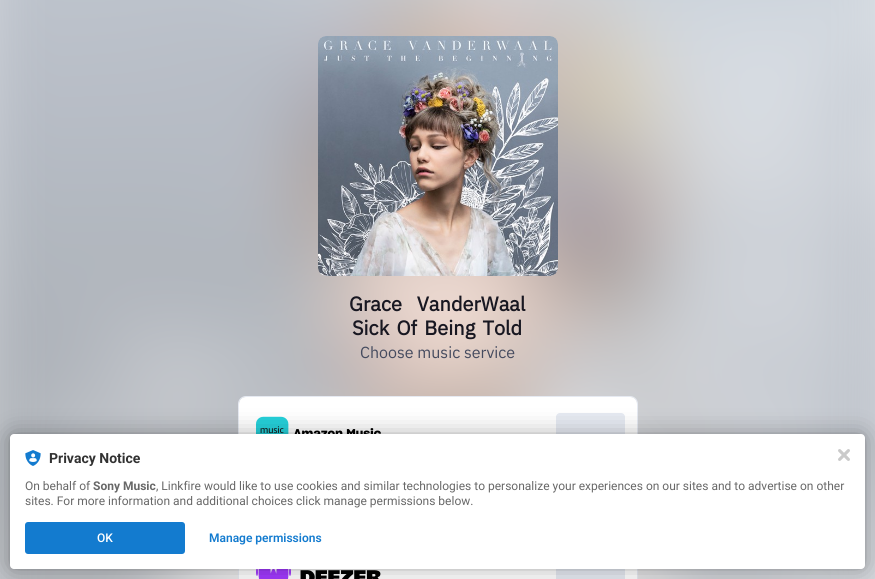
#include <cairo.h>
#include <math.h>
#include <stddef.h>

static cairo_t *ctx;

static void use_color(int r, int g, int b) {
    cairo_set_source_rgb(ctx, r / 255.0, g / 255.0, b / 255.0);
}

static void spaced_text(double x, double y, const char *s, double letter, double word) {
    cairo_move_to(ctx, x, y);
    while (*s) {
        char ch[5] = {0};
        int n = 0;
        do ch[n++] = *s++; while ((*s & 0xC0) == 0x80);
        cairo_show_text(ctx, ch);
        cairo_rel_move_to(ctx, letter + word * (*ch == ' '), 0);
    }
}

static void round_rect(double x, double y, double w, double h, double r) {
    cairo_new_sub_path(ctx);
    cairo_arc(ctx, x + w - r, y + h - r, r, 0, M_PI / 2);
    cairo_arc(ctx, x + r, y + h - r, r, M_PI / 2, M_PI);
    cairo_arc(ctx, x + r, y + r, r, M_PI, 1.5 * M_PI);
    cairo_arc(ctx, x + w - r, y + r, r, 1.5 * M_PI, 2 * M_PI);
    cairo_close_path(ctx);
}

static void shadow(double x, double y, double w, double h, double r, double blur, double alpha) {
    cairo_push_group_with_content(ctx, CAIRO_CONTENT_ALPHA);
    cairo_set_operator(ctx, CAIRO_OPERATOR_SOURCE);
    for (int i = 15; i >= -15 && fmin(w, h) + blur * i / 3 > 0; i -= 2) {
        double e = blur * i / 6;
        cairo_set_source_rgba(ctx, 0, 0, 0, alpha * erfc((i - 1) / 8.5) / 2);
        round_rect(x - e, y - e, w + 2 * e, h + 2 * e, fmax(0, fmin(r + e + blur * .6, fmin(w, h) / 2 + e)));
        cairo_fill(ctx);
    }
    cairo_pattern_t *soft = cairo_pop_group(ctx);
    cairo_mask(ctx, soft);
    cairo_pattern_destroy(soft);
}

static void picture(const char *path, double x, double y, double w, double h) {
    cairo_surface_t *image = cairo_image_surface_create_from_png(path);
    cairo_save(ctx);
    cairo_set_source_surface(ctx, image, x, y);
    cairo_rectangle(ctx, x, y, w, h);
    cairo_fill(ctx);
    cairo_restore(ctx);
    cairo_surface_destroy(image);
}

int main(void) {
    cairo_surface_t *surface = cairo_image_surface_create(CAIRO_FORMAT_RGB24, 875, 579);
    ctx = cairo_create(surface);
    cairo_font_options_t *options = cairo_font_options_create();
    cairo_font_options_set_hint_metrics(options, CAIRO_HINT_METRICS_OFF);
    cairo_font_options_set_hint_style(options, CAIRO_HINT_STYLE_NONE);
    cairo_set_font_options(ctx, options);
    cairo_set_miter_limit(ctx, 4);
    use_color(255, 255, 255);
    cairo_paint(ctx);
    picture("img1.png", 0, 0, 875, 579);
    picture("img2.png", 318, 36, 240, 240);
    cairo_select_font_face(ctx, "IBM Plex Sans", CAIRO_FONT_SLANT_NORMAL, CAIRO_FONT_WEIGHT_BOLD);
    cairo_set_font_size(ctx, 20);
    use_color(24, 23, 33);
    spaced_text(349, 311, "Grace VanderWaal", 0, 10);
    spaced_text(352, 335, "Sick Of Being Told", 0, 2.5);
    cairo_select_font_face(ctx, "IBM Plex Sans", CAIRO_FONT_SLANT_NORMAL, CAIRO_FONT_WEIGHT_NORMAL);
    cairo_set_font_size(ctx, 16);
    use_color(69, 75, 95);
    cairo_move_to(ctx, 360, 358);
    cairo_show_text(ctx, "Choose music service");
    round_rect(238.5, 396.5, 399, 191, 7.5);
    use_color(230, 234, 242);
    cairo_set_line_width(ctx, 1);
    cairo_stroke(ctx);
    use_color(255, 255, 255);
    round_rect(239, 397, 398, 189, 7);
    cairo_fill(ctx);
    picture("img3.png", 256, 416, 125, 18);
    use_color(230, 234, 242);
    round_rect(556, 413, 69, 40, 4);
    cairo_fill(ctx);
    picture("img4.png", 256, 569, 125, 10);
    cairo_rectangle(ctx, 556, 569, 69, 10);
    cairo_fill(ctx);
    use_color(0, 0, 0);
    shadow(10, 434, 855, 135, 4, 2, 0.12);
    shadow(10, 434, 855, 135, 4, 12, 0.3);
    use_color(255, 255, 255);
    round_rect(10, 434, 855, 135, 4);
    cairo_fill(ctx);
    picture("img5.png", 838, 449, 12, 12);
    picture("img6.png", 25, 450, 16, 16);
    cairo_select_font_face(ctx, "Roboto", CAIRO_FONT_SLANT_NORMAL, CAIRO_FONT_WEIGHT_BOLD);
    cairo_set_font_size(ctx, 14);
    use_color(50, 50, 50);
    cairo_move_to(ctx, 49, 463);
    cairo_show_text(ctx, "Privacy Notice");
    cairo_select_font_face(ctx, "Roboto", CAIRO_FONT_SLANT_NORMAL, CAIRO_FONT_WEIGHT_NORMAL);
    cairo_set_font_size(ctx, 12);
    use_color(104, 104, 104);
    cairo_move_to(ctx, 25, 490);
    cairo_show_text(ctx, "On behalf of");
    cairo_select_font_face(ctx, "Roboto", CAIRO_FONT_SLANT_NORMAL, CAIRO_FONT_WEIGHT_BOLD);
    cairo_move_to(ctx, 93, 490);
    cairo_show_text(ctx, "Sony Music");
    cairo_select_font_face(ctx, "Roboto", CAIRO_FONT_SLANT_NORMAL, CAIRO_FONT_WEIGHT_NORMAL);
    cairo_move_to(ctx, 156, 490);
    cairo_show_text(ctx, ", Linkfire would like to use cookies and similar technologies to personalize your experiences on our sites and to advertise on other");
    cairo_move_to(ctx, 25, 505);
    cairo_show_text(ctx, "sites. For more information and additional choices click manage permissions below.");
    use_color(19, 123, 207);
    round_rect(25, 522, 160, 32, 3);
    cairo_fill(ctx);
    cairo_select_font_face(ctx, "Roboto Medium", CAIRO_FONT_SLANT_NORMAL, CAIRO_FONT_WEIGHT_NORMAL);
    use_color(255, 255, 255);
    cairo_move_to(ctx, 97, 542);
    cairo_show_text(ctx, "OK");
    cairo_select_font_face(ctx, "Roboto SemiBold", CAIRO_FONT_SLANT_NORMAL, CAIRO_FONT_WEIGHT_NORMAL);
    use_color(19, 123, 207);
    cairo_move_to(ctx, 209, 542);
    cairo_show_text(ctx, "Manage permissions");
    cairo_surface_write_to_png(surface, "result.png");
    cairo_font_options_destroy(options);
    cairo_destroy(ctx);
    cairo_surface_destroy(surface);
    return 0;
}
